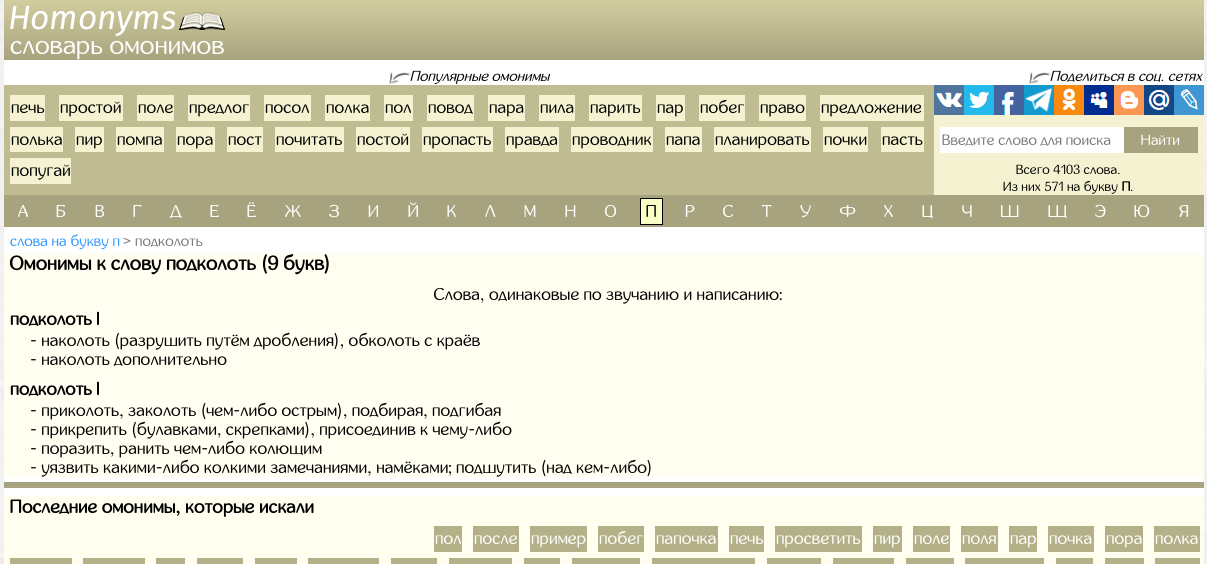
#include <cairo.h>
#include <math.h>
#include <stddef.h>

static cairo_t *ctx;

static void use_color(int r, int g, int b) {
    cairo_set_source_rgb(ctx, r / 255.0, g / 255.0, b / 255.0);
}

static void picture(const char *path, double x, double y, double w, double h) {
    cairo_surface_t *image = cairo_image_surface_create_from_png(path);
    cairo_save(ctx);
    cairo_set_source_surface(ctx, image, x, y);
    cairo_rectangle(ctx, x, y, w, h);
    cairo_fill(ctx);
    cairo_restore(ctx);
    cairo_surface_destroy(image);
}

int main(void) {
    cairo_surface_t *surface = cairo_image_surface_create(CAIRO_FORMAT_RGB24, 1207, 564);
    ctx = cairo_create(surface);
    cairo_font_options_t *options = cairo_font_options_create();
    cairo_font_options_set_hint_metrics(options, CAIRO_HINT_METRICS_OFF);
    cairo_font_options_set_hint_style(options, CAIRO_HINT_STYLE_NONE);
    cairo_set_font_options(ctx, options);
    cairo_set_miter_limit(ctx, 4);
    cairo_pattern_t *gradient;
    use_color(255, 255, 255);
    cairo_paint(ctx);
    picture("img1.png", 0, 0, 1207, 564);
    use_color(255, 255, 255);
    cairo_rectangle(ctx, 4, 60, 1200, 436);
    cairo_fill(ctx);
    gradient = cairo_pattern_create_linear(604, 60, 604, 0);
    cairo_pattern_add_color_stop_rgba(gradient, 0, 0.655, 0.639, 0.494, 1);
    cairo_pattern_add_color_stop_rgba(gradient, 1, 0.824, 0.804, 0.624, 1);
    cairo_set_source(ctx, gradient);
    cairo_pattern_destroy(gradient);
    cairo_rectangle(ctx, 4, 0, 1200, 60);
    cairo_fill(ctx);
    picture("img2.png", 10, 6, 216, 31);
    cairo_select_font_face(ctx, "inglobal", CAIRO_FONT_SLANT_NORMAL, CAIRO_FONT_WEIGHT_NORMAL);
    cairo_set_font_size(ctx, 26);
    use_color(255, 255, 255);
    cairo_move_to(ctx, 10, 54);
    cairo_show_text(ctx, "словарь омонимов");
    picture("img3.png", 389, 72, 21, 12);
    cairo_select_font_face(ctx, "inglobal", CAIRO_FONT_SLANT_ITALIC, CAIRO_FONT_WEIGHT_NORMAL);
    cairo_set_font_size(ctx, 14.5);
    use_color(0, 0, 0);
    cairo_move_to(ctx, 410, 81);
    cairo_show_text(ctx, "Популярные омонимы");
    picture("img3.png", 1029, 72, 21, 12);
    cairo_move_to(ctx, 1050, 81);
    cairo_show_text(ctx, "Поделиться в соц. сетях");
    use_color(192, 188, 145);
    cairo_rectangle(ctx, 4, 85, 930, 110);
    cairo_fill(ctx);
    use_color(245, 242, 209);
    cairo_rectangle(ctx, 10, 95, 35, 26);
    cairo_fill(ctx);
    cairo_select_font_face(ctx, "inglobal", CAIRO_FONT_SLANT_NORMAL, CAIRO_FONT_WEIGHT_NORMAL);
    cairo_set_font_size(ctx, 17.1);
    use_color(0, 0, 0);
    cairo_move_to(ctx, 11, 113);
    cairo_show_text(ctx, "печь");
    use_color(245, 242, 209);
    cairo_rectangle(ctx, 59, 95, 64, 26);
    cairo_fill(ctx);
    use_color(0, 0, 0);
    cairo_move_to(ctx, 60, 113);
    cairo_show_text(ctx, "простой");
    use_color(245, 242, 209);
    cairo_rectangle(ctx, 137, 95, 37, 26);
    cairo_fill(ctx);
    use_color(0, 0, 0);
    cairo_move_to(ctx, 138, 113);
    cairo_show_text(ctx, "поле");
    use_color(245, 242, 209);
    cairo_rectangle(ctx, 188, 95, 62, 26);
    cairo_fill(ctx);
    use_color(0, 0, 0);
    cairo_move_to(ctx, 189, 113);
    cairo_show_text(ctx, "предлог");
    use_color(245, 242, 209);
    cairo_rectangle(ctx, 264, 95, 47, 26);
    cairo_fill(ctx);
    use_color(0, 0, 0);
    cairo_move_to(ctx, 265, 113);
    cairo_show_text(ctx, "посол");
    use_color(245, 242, 209);
    cairo_rectangle(ctx, 325, 95, 45, 26);
    cairo_fill(ctx);
    use_color(0, 0, 0);
    cairo_move_to(ctx, 326, 113);
    cairo_show_text(ctx, "полка");
    use_color(245, 242, 209);
    cairo_rectangle(ctx, 384, 95, 29, 26);
    cairo_fill(ctx);
    use_color(0, 0, 0);
    cairo_move_to(ctx, 385, 113);
    cairo_show_text(ctx, "пол");
    use_color(245, 242, 209);
    cairo_rectangle(ctx, 427, 95, 47, 26);
    cairo_fill(ctx);
    use_color(0, 0, 0);
    cairo_move_to(ctx, 428, 113);
    cairo_show_text(ctx, "повод");
    use_color(245, 242, 209);
    cairo_rectangle(ctx, 488, 95, 37, 26);
    cairo_fill(ctx);
    use_color(0, 0, 0);
    cairo_move_to(ctx, 489, 113);
    cairo_show_text(ctx, "пара");
    use_color(245, 242, 209);
    cairo_rectangle(ctx, 539, 95, 36, 26);
    cairo_fill(ctx);
    use_color(0, 0, 0);
    cairo_move_to(ctx, 540, 113);
    cairo_show_text(ctx, "пила");
    use_color(245, 242, 209);
    cairo_rectangle(ctx, 589, 95, 53, 26);
    cairo_fill(ctx);
    use_color(0, 0, 0);
    cairo_move_to(ctx, 590, 113);
    cairo_show_text(ctx, "парить");
    use_color(245, 242, 209);
    cairo_rectangle(ctx, 656, 95, 29, 26);
    cairo_fill(ctx);
    use_color(0, 0, 0);
    cairo_move_to(ctx, 657, 113);
    cairo_show_text(ctx, "пар");
    use_color(245, 242, 209);
    cairo_rectangle(ctx, 699, 95, 46, 26);
    cairo_fill(ctx);
    use_color(0, 0, 0);
    cairo_move_to(ctx, 700, 113);
    cairo_show_text(ctx, "побег");
    use_color(245, 242, 209);
    cairo_rectangle(ctx, 759, 95, 47, 26);
    cairo_fill(ctx);
    use_color(0, 0, 0);
    cairo_move_to(ctx, 760, 113);
    cairo_show_text(ctx, "право");
    use_color(245, 242, 209);
    cairo_rectangle(ctx, 820, 95, 104, 26);
    cairo_fill(ctx);
    use_color(0, 0, 0);
    cairo_move_to(ctx, 821, 113);
    cairo_show_text(ctx, "предложение");
    use_color(245, 242, 209);
    cairo_rectangle(ctx, 10, 127, 53, 25);
    cairo_fill(ctx);
    use_color(0, 0, 0);
    cairo_move_to(ctx, 11, 145);
    cairo_show_text(ctx, "полька");
    use_color(245, 242, 209);
    cairo_rectangle(ctx, 75, 127, 29, 25);
    cairo_fill(ctx);
    use_color(0, 0, 0);
    cairo_move_to(ctx, 76, 145);
    cairo_show_text(ctx, "пир");
    use_color(245, 242, 209);
    cairo_rectangle(ctx, 116, 127, 48, 25);
    cairo_fill(ctx);
    use_color(0, 0, 0);
    cairo_move_to(ctx, 117, 145);
    cairo_show_text(ctx, "помпа");
    use_color(245, 242, 209);
    cairo_rectangle(ctx, 176, 127, 39, 25);
    cairo_fill(ctx);
    use_color(0, 0, 0);
    cairo_move_to(ctx, 177, 145);
    cairo_show_text(ctx, "пора");
    use_color(245, 242, 209);
    cairo_rectangle(ctx, 227, 127, 36, 25);
    cairo_fill(ctx);
    use_color(0, 0, 0);
    cairo_move_to(ctx, 228, 145);
    cairo_show_text(ctx, "пост");
    use_color(245, 242, 209);
    cairo_rectangle(ctx, 275, 127, 69, 25);
    cairo_fill(ctx);
    use_color(0, 0, 0);
    cairo_move_to(ctx, 276, 145);
    cairo_show_text(ctx, "почитать");
    use_color(245, 242, 209);
    cairo_rectangle(ctx, 356, 127, 54, 25);
    cairo_fill(ctx);
    use_color(0, 0, 0);
    cairo_move_to(ctx, 357, 145);
    cairo_show_text(ctx, "постой");
    use_color(245, 242, 209);
    cairo_rectangle(ctx, 422, 127, 71, 25);
    cairo_fill(ctx);
    use_color(0, 0, 0);
    cairo_move_to(ctx, 423, 145);
    cairo_show_text(ctx, "пропасть");
    use_color(245, 242, 209);
    cairo_rectangle(ctx, 505, 127, 54, 25);
    cairo_fill(ctx);
    use_color(0, 0, 0);
    cairo_move_to(ctx, 506, 145);
    cairo_show_text(ctx, "правда");
    use_color(245, 242, 209);
    cairo_rectangle(ctx, 571, 127, 82, 25);
    cairo_fill(ctx);
    use_color(0, 0, 0);
    cairo_move_to(ctx, 572, 145);
    cairo_show_text(ctx, "проводник");
    use_color(245, 242, 209);
    cairo_rectangle(ctx, 665, 127, 37, 25);
    cairo_fill(ctx);
    use_color(0, 0, 0);
    cairo_move_to(ctx, 666, 145);
    cairo_show_text(ctx, "папа");
    use_color(245, 242, 209);
    cairo_rectangle(ctx, 714, 127, 97, 25);
    cairo_fill(ctx);
    use_color(0, 0, 0);
    cairo_move_to(ctx, 715, 145);
    cairo_show_text(ctx, "планировать");
    use_color(245, 242, 209);
    cairo_rectangle(ctx, 823, 127, 45, 25);
    cairo_fill(ctx);
    use_color(0, 0, 0);
    cairo_move_to(ctx, 824, 145);
    cairo_show_text(ctx, "почки");
    use_color(245, 242, 209);
    cairo_rectangle(ctx, 881, 127, 43, 25);
    cairo_fill(ctx);
    use_color(0, 0, 0);
    cairo_move_to(ctx, 882, 145);
    cairo_show_text(ctx, "пасть");
    use_color(245, 242, 209);
    cairo_rectangle(ctx, 10, 158, 61, 26);
    cairo_fill(ctx);
    use_color(0, 0, 0);
    cairo_move_to(ctx, 11, 176);
    cairo_show_text(ctx, "попугай");
    use_color(245, 242, 209);
    cairo_rectangle(ctx, 934, 115, 270, 80);
    cairo_fill(ctx);
    picture("img4.png", 934, 85, 30, 30);
    picture("img5.png", 964, 85, 30, 30);
    picture("img6.png", 994, 85, 30, 30);
    use_color(19, 155, 208);
    cairo_rectangle(ctx, 1024, 85, 30, 30);
    cairo_fill(ctx);
    picture("img7.png", 1025, 85, 28, 27);
    picture("img8.png", 1054, 85, 30, 30);
    picture("img9.png", 1084, 85, 30, 30);
    picture("img10.png", 1114, 85, 30, 30);
    picture("img11.png", 1144, 85, 30, 30);
    picture("img12.png", 1174, 85, 30, 30);
    use_color(255, 255, 255);
    cairo_rectangle(ctx, 940, 127, 184, 26);
    cairo_fill(ctx);
    cairo_set_font_size(ctx, 14.9);
    use_color(121, 121, 121);
    cairo_move_to(ctx, 942, 145);
    cairo_show_text(ctx, "Введите слово для поиска");
    use_color(167, 163, 126);
    cairo_rectangle(ctx, 1124, 127, 74, 26);
    cairo_fill(ctx);
    use_color(255, 255, 255);
    cairo_move_to(ctx, 1141, 145);
    cairo_show_text(ctx, "Найти");
    cairo_set_font_size(ctx, 13.25);
    use_color(0, 0, 0);
    cairo_move_to(ctx, 1016, 174);
    cairo_show_text(ctx, "Всего 4103 слова.");
    cairo_move_to(ctx, 1003, 191);
    cairo_show_text(ctx, "Из них 571 на букву");
    cairo_select_font_face(ctx, "inglobal", CAIRO_FONT_SLANT_NORMAL, CAIRO_FONT_WEIGHT_BOLD);
    cairo_move_to(ctx, 1122, 191);
    cairo_show_text(ctx, "П");
    cairo_select_font_face(ctx, "inglobal", CAIRO_FONT_SLANT_NORMAL, CAIRO_FONT_WEIGHT_NORMAL);
    cairo_move_to(ctx, 1130, 191);
    cairo_show_text(ctx, ".");
    use_color(167, 163, 126);
    cairo_rectangle(ctx, 4, 195, 1200, 32);
    cairo_fill(ctx);
    cairo_set_font_size(ctx, 17.1);
    use_color(255, 255, 255);
    cairo_move_to(ctx, 18, 217);
    cairo_show_text(ctx, "А");
    cairo_move_to(ctx, 56, 217);
    cairo_show_text(ctx, "Б");
    cairo_move_to(ctx, 95, 217);
    cairo_show_text(ctx, "В");
    cairo_move_to(ctx, 133, 217);
    cairo_show_text(ctx, "Г");
    cairo_move_to(ctx, 170, 217);
    cairo_show_text(ctx, "Д");
    cairo_move_to(ctx, 210, 217);
    cairo_show_text(ctx, "Е");
    cairo_move_to(ctx, 247, 217);
    cairo_show_text(ctx, "Ё");
    cairo_move_to(ctx, 285, 217);
    cairo_show_text(ctx, "Ж");
    cairo_move_to(ctx, 329, 217);
    cairo_show_text(ctx, "З");
    cairo_move_to(ctx, 368, 217);
    cairo_show_text(ctx, "И");
    cairo_move_to(ctx, 408, 217);
    cairo_show_text(ctx, "Й");
    cairo_move_to(ctx, 447, 217);
    cairo_show_text(ctx, "К");
    cairo_move_to(ctx, 485, 217);
    cairo_show_text(ctx, "Л");
    cairo_move_to(ctx, 524, 217);
    cairo_show_text(ctx, "М");
    cairo_move_to(ctx, 565, 217);
    cairo_show_text(ctx, "Н");
    cairo_move_to(ctx, 605, 217);
    cairo_show_text(ctx, "О");
    cairo_rectangle(ctx, 640.5, 198.5, 22, 26);
    use_color(0, 0, 0);
    cairo_set_line_width(ctx, 1);
    cairo_stroke(ctx);
    use_color(250, 255, 198);
    cairo_rectangle(ctx, 641, 199, 21, 25);
    cairo_fill(ctx);
    use_color(0, 0, 0);
    cairo_move_to(ctx, 646, 217);
    cairo_show_text(ctx, "П");
    use_color(255, 255, 255);
    cairo_move_to(ctx, 685, 217);
    cairo_show_text(ctx, "Р");
    cairo_move_to(ctx, 723, 217);
    cairo_show_text(ctx, "С");
    cairo_move_to(ctx, 762, 217);
    cairo_show_text(ctx, "Т");
    cairo_move_to(ctx, 800, 217);
    cairo_show_text(ctx, "У");
    cairo_move_to(ctx, 840, 217);
    cairo_show_text(ctx, "Ф");
    cairo_move_to(ctx, 884, 217);
    cairo_show_text(ctx, "Х");
    cairo_move_to(ctx, 922, 217);
    cairo_show_text(ctx, "Ц");
    cairo_move_to(ctx, 962, 217);
    cairo_show_text(ctx, "Ч");
    cairo_move_to(ctx, 1001, 217);
    cairo_show_text(ctx, "Ш");
    cairo_move_to(ctx, 1048, 217);
    cairo_show_text(ctx, "Щ");
    cairo_move_to(ctx, 1095, 217);
    cairo_show_text(ctx, "Э");
    cairo_move_to(ctx, 1134, 217);
    cairo_show_text(ctx, "Ю");
    cairo_move_to(ctx, 1179, 217);
    cairo_show_text(ctx, "Я");
    cairo_set_font_size(ctx, 14.9);
    use_color(48, 150, 255);
    cairo_move_to(ctx, 10, 246);
    cairo_show_text(ctx, "слова на букву п");
    use_color(121, 121, 121);
    cairo_move_to(ctx, 123, 246);
    cairo_show_text(ctx, ">");
    cairo_move_to(ctx, 135, 246);
    cairo_show_text(ctx, "подколоть");
    use_color(255, 254, 240);
    cairo_rectangle(ctx, 4, 253, 1200, 224);
    cairo_fill(ctx);
    cairo_select_font_face(ctx, "inglobal", CAIRO_FONT_SLANT_NORMAL, CAIRO_FONT_WEIGHT_BOLD);
    cairo_set_font_size(ctx, 19.8);
    use_color(0, 0, 0);
    cairo_move_to(ctx, 10, 270);
    cairo_show_text(ctx, "Омонимы к слову подколоть (9 букв)");
    cairo_select_font_face(ctx, "inglobal", CAIRO_FONT_SLANT_NORMAL, CAIRO_FONT_WEIGHT_NORMAL);
    cairo_set_font_size(ctx, 17.1);
    cairo_move_to(ctx, 434, 300);
    cairo_show_text(ctx, "Слова, одинаковые по звучанию и написанию:");
    cairo_select_font_face(ctx, "inglobal", CAIRO_FONT_SLANT_NORMAL, CAIRO_FONT_WEIGHT_BOLD);
    cairo_set_font_size(ctx, 18);
    cairo_move_to(ctx, 10, 325);
    cairo_show_text(ctx, "подколоть I");
    cairo_select_font_face(ctx, "inglobal", CAIRO_FONT_SLANT_NORMAL, CAIRO_FONT_WEIGHT_NORMAL);
    cairo_set_font_size(ctx, 17.1);
    cairo_move_to(ctx, 30, 346);
    cairo_show_text(ctx, "- наколоть (разрушить путём дробления), обколоть с краёв");
    cairo_move_to(ctx, 30, 365);
    cairo_show_text(ctx, "- наколоть дополнительно");
    cairo_select_font_face(ctx, "inglobal", CAIRO_FONT_SLANT_NORMAL, CAIRO_FONT_WEIGHT_BOLD);
    cairo_set_font_size(ctx, 18);
    cairo_move_to(ctx, 10, 395);
    cairo_show_text(ctx, "подколоть I");
    cairo_select_font_face(ctx, "inglobal", CAIRO_FONT_SLANT_NORMAL, CAIRO_FONT_WEIGHT_NORMAL);
    cairo_set_font_size(ctx, 17.1);
    cairo_move_to(ctx, 30, 416);
    cairo_show_text(ctx, "- приколоть, заколоть (чем-либо острым), подбирая, подгибая");
    cairo_move_to(ctx, 30, 435);
    cairo_show_text(ctx, "- прикрепить (булавками, скрепками), присоединив к чему-либо");
    cairo_move_to(ctx, 30, 454);
    cairo_show_text(ctx, "- поразить, ранить чем-либо колющим");
    cairo_move_to(ctx, 30, 473);
    cairo_show_text(ctx, "- уязвить какими-либо колкими замечаниями, намёками; подшутить (над кем-либо)");
    use_color(167, 163, 126);
    cairo_rectangle(ctx, 4, 482, 1200, 6);
    cairo_fill(ctx);
    use_color(255, 254, 239);
    cairo_rectangle(ctx, 4, 496, 1200, 68);
    cairo_fill(ctx);
    cairo_select_font_face(ctx, "inglobal", CAIRO_FONT_SLANT_NORMAL, CAIRO_FONT_WEIGHT_BOLD);
    cairo_set_font_size(ctx, 18.5);
    use_color(0, 0, 0);
    cairo_move_to(ctx, 10, 513);
    cairo_show_text(ctx, "Последние омонимы, которые искали");
    use_color(180, 176, 136);
    cairo_rectangle(ctx, 434, 526, 28, 26);
    cairo_fill(ctx);
    cairo_select_font_face(ctx, "inglobal", CAIRO_FONT_SLANT_NORMAL, CAIRO_FONT_WEIGHT_NORMAL);
    cairo_set_font_size(ctx, 17.1);
    use_color(255, 255, 255);
    cairo_move_to(ctx, 435, 544);
    cairo_show_text(ctx, "пол");
    use_color(180, 176, 136);
    cairo_rectangle(ctx, 473, 526, 46, 26);
    cairo_fill(ctx);
    use_color(255, 255, 255);
    cairo_move_to(ctx, 474, 544);
    cairo_show_text(ctx, "после");
    use_color(180, 176, 136);
    cairo_rectangle(ctx, 530, 526, 57, 26);
    cairo_fill(ctx);
    use_color(255, 255, 255);
    cairo_move_to(ctx, 531, 544);
    cairo_show_text(ctx, "пример");
    use_color(180, 176, 136);
    cairo_rectangle(ctx, 598, 526, 46, 26);
    cairo_fill(ctx);
    use_color(255, 255, 255);
    cairo_move_to(ctx, 599, 544);
    cairo_show_text(ctx, "побег");
    use_color(180, 176, 136);
    cairo_rectangle(ctx, 655, 526, 63, 26);
    cairo_fill(ctx);
    use_color(255, 255, 255);
    cairo_move_to(ctx, 656, 544);
    cairo_show_text(ctx, "папочка");
    use_color(180, 176, 136);
    cairo_rectangle(ctx, 729, 526, 35, 26);
    cairo_fill(ctx);
    use_color(255, 255, 255);
    cairo_move_to(ctx, 730, 544);
    cairo_show_text(ctx, "печь");
    use_color(180, 176, 136);
    cairo_rectangle(ctx, 775, 526, 87, 26);
    cairo_fill(ctx);
    use_color(255, 255, 255);
    cairo_move_to(ctx, 776, 544);
    cairo_show_text(ctx, "просветить");
    use_color(180, 176, 136);
    cairo_rectangle(ctx, 873, 526, 29, 26);
    cairo_fill(ctx);
    use_color(255, 255, 255);
    cairo_move_to(ctx, 874, 544);
    cairo_show_text(ctx, "пир");
    use_color(180, 176, 136);
    cairo_rectangle(ctx, 913, 526, 37, 26);
    cairo_fill(ctx);
    use_color(255, 255, 255);
    cairo_move_to(ctx, 914, 544);
    cairo_show_text(ctx, "поле");
    use_color(180, 176, 136);
    cairo_rectangle(ctx, 961, 526, 37, 26);
    cairo_fill(ctx);
    use_color(255, 255, 255);
    cairo_move_to(ctx, 962, 544);
    cairo_show_text(ctx, "поля");
    use_color(180, 176, 136);
    cairo_rectangle(ctx, 1009, 526, 28, 26);
    cairo_fill(ctx);
    use_color(255, 255, 255);
    cairo_move_to(ctx, 1010, 544);
    cairo_show_text(ctx, "пар");
    use_color(180, 176, 136);
    cairo_rectangle(ctx, 1048, 526, 46, 26);
    cairo_fill(ctx);
    use_color(255, 255, 255);
    cairo_move_to(ctx, 1049, 544);
    cairo_show_text(ctx, "почка");
    use_color(180, 176, 136);
    cairo_rectangle(ctx, 1105, 526, 38, 26);
    cairo_fill(ctx);
    use_color(255, 255, 255);
    cairo_move_to(ctx, 1106, 544);
    cairo_show_text(ctx, "пора");
    use_color(180, 176, 136);
    cairo_rectangle(ctx, 1154, 526, 46, 26);
    cairo_fill(ctx);
    use_color(255, 255, 255);
    cairo_move_to(ctx, 1155, 544);
    cairo_show_text(ctx, "полка");
    use_color(180, 176, 136);
    cairo_rectangle(ctx, 10, 558, 62, 6);
    cairo_fill(ctx);
    cairo_rectangle(ctx, 83, 558, 62, 6);
    cairo_fill(ctx);
    cairo_rectangle(ctx, 156, 558, 29, 6);
    cairo_fill(ctx);
    cairo_rectangle(ctx, 197, 558, 46, 6);
    cairo_fill(ctx);
    cairo_rectangle(ctx, 255, 558, 42, 6);
    cairo_fill(ctx);
    cairo_rectangle(ctx, 308, 558, 71, 6);
    cairo_fill(ctx);
    cairo_rectangle(ctx, 391, 558, 46, 6);
    cairo_fill(ctx);
    cairo_rectangle(ctx, 449, 558, 63, 6);
    cairo_fill(ctx);
    cairo_rectangle(ctx, 524, 558, 36, 6);
    cairo_fill(ctx);
    cairo_rectangle(ctx, 572, 558, 68, 6);
    cairo_fill(ctx);
    cairo_rectangle(ctx, 652, 558, 103, 6);
    cairo_fill(ctx);
    cairo_rectangle(ctx, 767, 558, 54, 6);
    cairo_fill(ctx);
    cairo_rectangle(ctx, 833, 558, 61, 6);
    cairo_fill(ctx);
    cairo_rectangle(ctx, 906, 558, 48, 6);
    cairo_fill(ctx);
    cairo_rectangle(ctx, 965, 558, 79, 6);
    cairo_fill(ctx);
    cairo_rectangle(ctx, 1056, 558, 37, 6);
    cairo_fill(ctx);
    cairo_rectangle(ctx, 1105, 558, 39, 6);
    cairo_fill(ctx);
    cairo_rectangle(ctx, 1155, 558, 45, 6);
    cairo_fill(ctx);
    cairo_surface_write_to_png(surface, "result.png");
    cairo_font_options_destroy(options);
    cairo_destroy(ctx);
    cairo_surface_destroy(surface);
    return 0;
}
